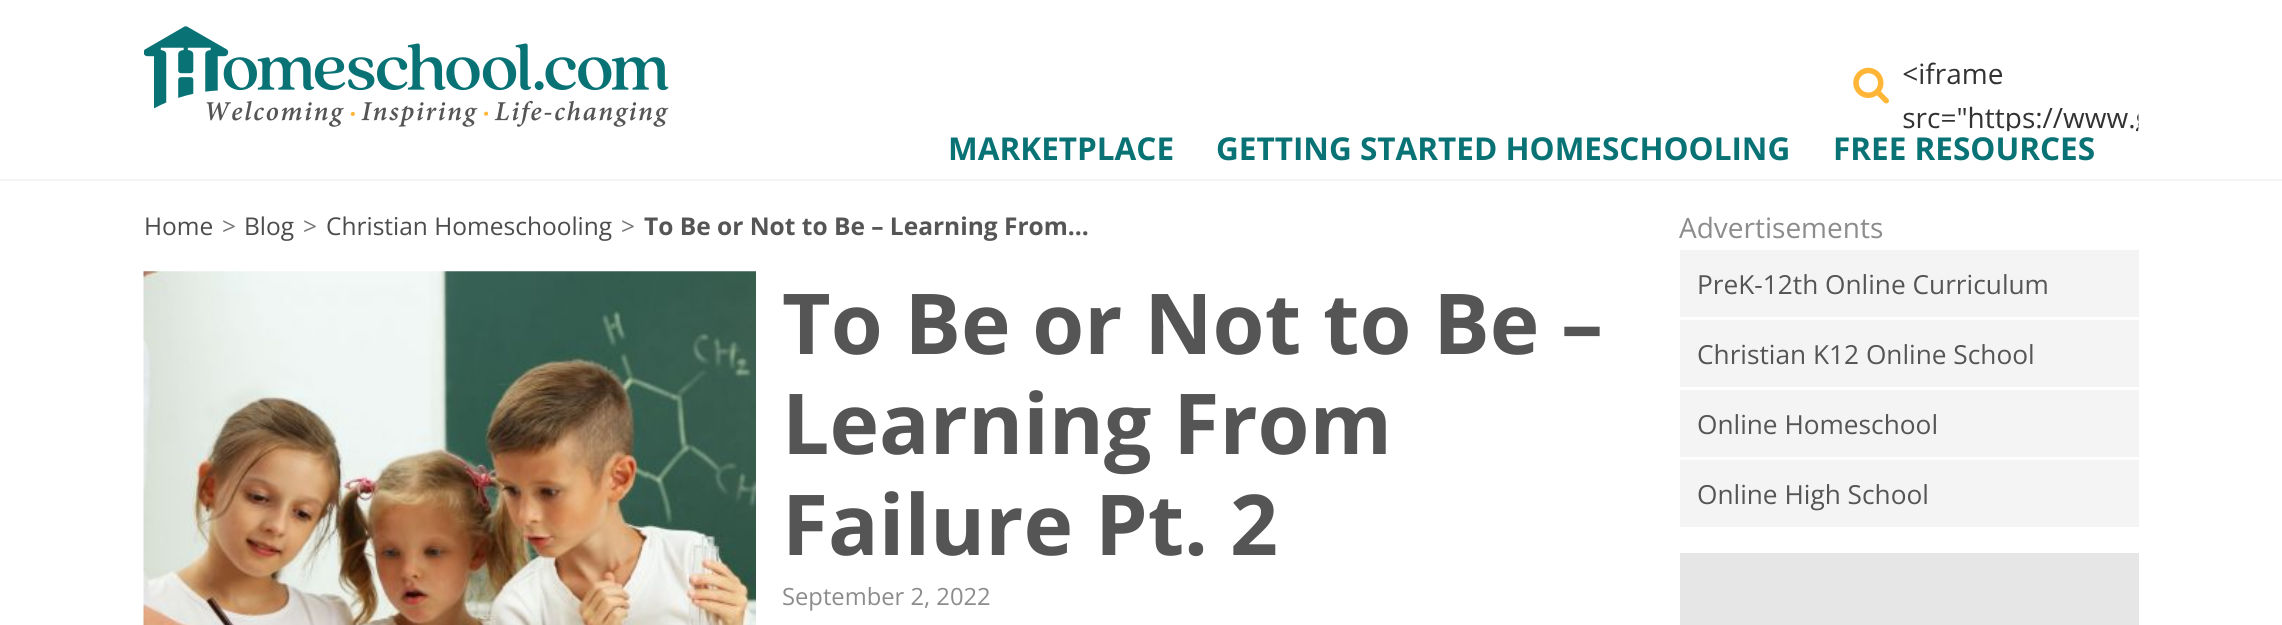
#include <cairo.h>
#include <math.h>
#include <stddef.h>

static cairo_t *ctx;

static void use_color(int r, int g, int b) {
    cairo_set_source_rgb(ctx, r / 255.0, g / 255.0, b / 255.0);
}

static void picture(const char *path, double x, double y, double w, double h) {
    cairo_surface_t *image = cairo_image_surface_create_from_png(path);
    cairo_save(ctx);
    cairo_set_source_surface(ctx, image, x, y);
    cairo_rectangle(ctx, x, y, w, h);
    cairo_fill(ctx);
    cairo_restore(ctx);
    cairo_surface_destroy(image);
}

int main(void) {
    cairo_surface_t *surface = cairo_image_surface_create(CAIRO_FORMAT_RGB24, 2282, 625);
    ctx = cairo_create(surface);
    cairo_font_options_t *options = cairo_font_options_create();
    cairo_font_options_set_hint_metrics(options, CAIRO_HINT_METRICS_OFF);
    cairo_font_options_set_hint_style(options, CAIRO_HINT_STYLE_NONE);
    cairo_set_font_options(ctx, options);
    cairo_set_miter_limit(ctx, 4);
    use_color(255, 255, 255);
    cairo_paint(ctx);
    use_color(244, 244, 244);
    cairo_rectangle(ctx, 0, 179, 2282, 2);
    cairo_fill(ctx);
    picture("img1.png", 144, 26, 525, 101);
    picture("img2.png", 1853, 67, 36, 37);
    picture("img3.png", 1903, 62, 236, 70);
    cairo_select_font_face(ctx, "Open Sans", CAIRO_FONT_SLANT_NORMAL, CAIRO_FONT_WEIGHT_BOLD);
    cairo_set_font_size(ctx, 31.5);
    use_color(9, 114, 117);
    cairo_move_to(ctx, 948, 160);
    cairo_show_text(ctx, "MARKETPLACE");
    cairo_move_to(ctx, 1216, 160);
    cairo_show_text(ctx, "GETTING STARTED HOMESCHOOLING");
    cairo_move_to(ctx, 1833, 160);
    cairo_show_text(ctx, "FREE RESOURCES");
    cairo_select_font_face(ctx, "Open Sans", CAIRO_FONT_SLANT_NORMAL, CAIRO_FONT_WEIGHT_NORMAL);
    cairo_set_font_size(ctx, 24.5);
    use_color(76, 76, 76);
    cairo_move_to(ctx, 144, 235);
    cairo_show_text(ctx, "Home");
    use_color(119, 119, 119);
    cairo_move_to(ctx, 222, 235);
    cairo_show_text(ctx, ">");
    use_color(76, 76, 76);
    cairo_move_to(ctx, 244, 235);
    cairo_show_text(ctx, "Blog");
    use_color(119, 119, 119);
    cairo_move_to(ctx, 303, 235);
    cairo_show_text(ctx, ">");
    use_color(76, 76, 76);
    cairo_move_to(ctx, 326, 235);
    cairo_show_text(ctx, "Christian Homeschooling");
    use_color(119, 119, 119);
    cairo_move_to(ctx, 621, 235);
    cairo_show_text(ctx, ">");
    cairo_select_font_face(ctx, "Open Sans", CAIRO_FONT_SLANT_NORMAL, CAIRO_FONT_WEIGHT_BOLD);
    use_color(85, 85, 85);
    cairo_move_to(ctx, 644, 235);
    cairo_show_text(ctx, "To Be or Not to Be – Learning From...");
    picture("img4.png", 143, 271, 613, 354);
    cairo_set_font_size(ctx, 84);
    cairo_move_to(ctx, 782, 354);
    cairo_show_text(ctx, "To Be or Not to Be –");
    cairo_move_to(ctx, 782, 454);
    cairo_show_text(ctx, "Learning From");
    cairo_move_to(ctx, 782, 555);
    cairo_show_text(ctx, "Failure Pt. 2");
    cairo_select_font_face(ctx, "Open Sans", CAIRO_FONT_SLANT_NORMAL, CAIRO_FONT_WEIGHT_NORMAL);
    cairo_set_font_size(ctx, 23.75);
    use_color(140, 140, 140);
    cairo_move_to(ctx, 782, 605);
    cairo_show_text(ctx, "September 2, 2022");
    cairo_set_font_size(ctx, 28);
    cairo_move_to(ctx, 1679, 238);
    cairo_show_text(ctx, "Advertisements");
    use_color(244, 244, 244);
    cairo_rectangle(ctx, 1680, 250, 459, 67);
    cairo_fill(ctx);
    cairo_set_font_size(ctx, 26.25);
    use_color(85, 85, 85);
    cairo_move_to(ctx, 1697, 294);
    cairo_show_text(ctx, "PreK-12th Online Curriculum");
    use_color(244, 244, 244);
    cairo_rectangle(ctx, 1680, 320, 459, 67);
    cairo_fill(ctx);
    use_color(85, 85, 85);
    cairo_move_to(ctx, 1697, 364);
    cairo_show_text(ctx, "Christian K12 Online School");
    use_color(244, 244, 244);
    cairo_rectangle(ctx, 1680, 390, 459, 67);
    cairo_fill(ctx);
    use_color(85, 85, 85);
    cairo_move_to(ctx, 1697, 434);
    cairo_show_text(ctx, "Online Homeschool");
    use_color(244, 244, 244);
    cairo_rectangle(ctx, 1680, 460, 459, 67);
    cairo_fill(ctx);
    use_color(85, 85, 85);
    cairo_move_to(ctx, 1697, 504);
    cairo_show_text(ctx, "Online High School");
    use_color(230, 230, 230);
    cairo_rectangle(ctx, 1680, 553, 459, 72);
    cairo_fill(ctx);
    cairo_surface_write_to_png(surface, "result.png");
    cairo_font_options_destroy(options);
    cairo_destroy(ctx);
    cairo_surface_destroy(surface);
    return 0;
}
